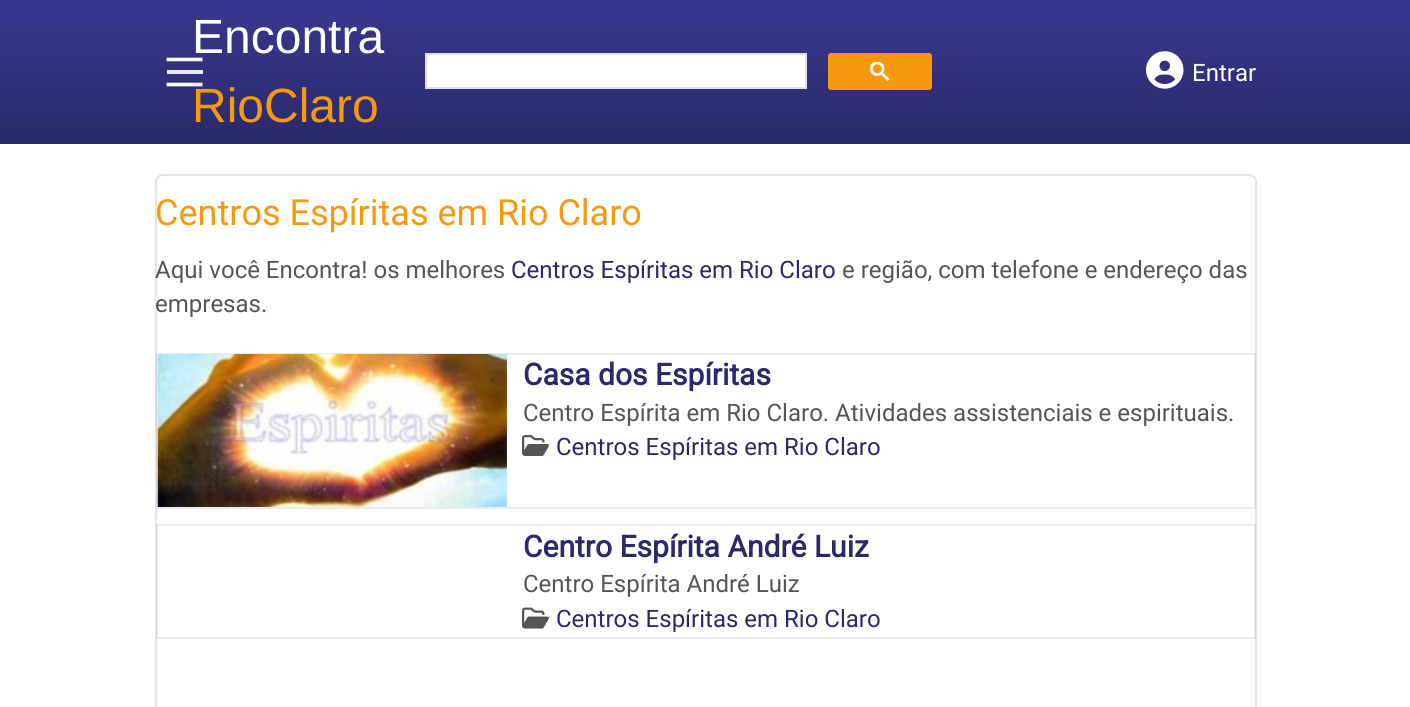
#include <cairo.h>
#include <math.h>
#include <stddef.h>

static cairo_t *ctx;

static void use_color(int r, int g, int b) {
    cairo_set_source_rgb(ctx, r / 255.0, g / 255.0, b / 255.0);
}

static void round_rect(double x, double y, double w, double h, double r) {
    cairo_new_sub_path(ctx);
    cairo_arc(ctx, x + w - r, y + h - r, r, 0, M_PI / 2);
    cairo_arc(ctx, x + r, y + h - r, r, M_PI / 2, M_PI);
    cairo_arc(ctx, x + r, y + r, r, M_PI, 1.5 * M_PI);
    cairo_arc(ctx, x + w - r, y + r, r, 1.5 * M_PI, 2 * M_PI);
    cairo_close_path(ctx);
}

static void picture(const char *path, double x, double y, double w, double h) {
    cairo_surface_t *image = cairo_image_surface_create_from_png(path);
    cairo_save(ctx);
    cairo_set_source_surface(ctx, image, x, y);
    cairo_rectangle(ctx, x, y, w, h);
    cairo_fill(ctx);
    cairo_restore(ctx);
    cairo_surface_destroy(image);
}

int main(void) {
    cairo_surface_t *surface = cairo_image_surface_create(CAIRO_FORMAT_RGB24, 1410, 707);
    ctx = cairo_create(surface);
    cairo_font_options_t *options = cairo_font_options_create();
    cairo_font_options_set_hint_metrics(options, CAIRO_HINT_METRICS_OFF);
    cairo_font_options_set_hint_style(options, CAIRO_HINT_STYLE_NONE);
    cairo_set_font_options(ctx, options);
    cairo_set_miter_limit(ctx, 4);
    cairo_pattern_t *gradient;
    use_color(255, 255, 255);
    cairo_paint(ctx);
    gradient = cairo_pattern_create_linear(705, 0, 705, 144);
    cairo_pattern_add_color_stop_rgba(gradient, 0, 0.227, 0.216, 0.561, 1);
    cairo_pattern_add_color_stop_rgba(gradient, 1, 0.169, 0.161, 0.416, 1);
    cairo_set_source(ctx, gradient);
    cairo_pattern_destroy(gradient);
    cairo_rectangle(ctx, 0, 0, 1410, 144);
    cairo_fill(ctx);
    cairo_new_path(ctx);
    cairo_move_to(ctx, 166.5, 59.5);
    cairo_line_to(ctx, 202.5, 59.5);
    use_color(254, 254, 254);
    cairo_set_line_width(ctx, 3.6);
    cairo_stroke(ctx);
    use_color(234, 233, 241);
    cairo_rectangle(ctx, 167, 70, 36, 4);
    cairo_fill(ctx);
    cairo_new_path(ctx);
    cairo_move_to(ctx, 166.5, 84.5);
    cairo_line_to(ctx, 202.5, 84.5);
    use_color(254, 254, 254);
    cairo_stroke(ctx);
    cairo_select_font_face(ctx, "Liberation Sans", CAIRO_FONT_SLANT_NORMAL, CAIRO_FONT_WEIGHT_NORMAL);
    cairo_set_font_size(ctx, 48);
    cairo_move_to(ctx, 192, 53);
    cairo_show_text(ctx, "Encontra");
    use_color(246, 153, 13);
    cairo_move_to(ctx, 192, 122);
    cairo_show_text(ctx, "RioClaro");
    use_color(255, 255, 255);
    cairo_rectangle(ctx, 426, 54, 380, 34);
    cairo_fill_preserve(ctx);
    use_color(223, 225, 229);
    cairo_set_line_width(ctx, 2);
    cairo_stroke(ctx);
    use_color(246, 153, 13);
    round_rect(829, 54, 102, 35, 2);
    cairo_fill_preserve(ctx);
    cairo_stroke(ctx);
    picture("img1.png", 870, 62, 20, 19);
    picture("img2.png", 1146, 51, 38, 38);
    cairo_select_font_face(ctx, "Roboto", CAIRO_FONT_SLANT_NORMAL, CAIRO_FONT_WEIGHT_NORMAL);
    cairo_set_font_size(ctx, 24);
    use_color(254, 254, 254);
    cairo_move_to(ctx, 1192, 81);
    cairo_show_text(ctx, "Entrar");
    round_rect(156, 175, 1100, 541, 7);
    use_color(229, 229, 229);
    cairo_stroke(ctx);
    cairo_set_font_size(ctx, 36);
    use_color(246, 153, 13);
    cairo_move_to(ctx, 155, 225);
    cairo_show_text(ctx, "Centros Espíritas em Rio Claro");
    cairo_set_font_size(ctx, 24);
    use_color(85, 85, 85);
    cairo_move_to(ctx, 155, 278);
    cairo_show_text(ctx, "Aqui você Encontra! os melhores");
    use_color(43, 41, 106);
    cairo_move_to(ctx, 511, 278);
    cairo_show_text(ctx, "Centros Espíritas em Rio Claro");
    use_color(85, 85, 85);
    cairo_move_to(ctx, 842, 278);
    cairo_show_text(ctx, "e região, com telefone e endereço das");
    cairo_move_to(ctx, 155, 312);
    cairo_show_text(ctx, "empresas.");
    cairo_rectangle(ctx, 157, 354, 1098, 154);
    cairo_set_source_rgba(ctx, 0.169, 0.161, 0.416, 0.1);
    cairo_stroke(ctx);
    picture("img3.png", 157, 354, 350, 153);
    cairo_select_font_face(ctx, "Roboto", CAIRO_FONT_SLANT_NORMAL, CAIRO_FONT_WEIGHT_BOLD);
    cairo_set_font_size(ctx, 30);
    use_color(43, 41, 106);
    cairo_move_to(ctx, 523, 385);
    cairo_show_text(ctx, "Casa dos Espíritas");
    cairo_select_font_face(ctx, "Roboto", CAIRO_FONT_SLANT_NORMAL, CAIRO_FONT_WEIGHT_NORMAL);
    cairo_set_font_size(ctx, 24);
    use_color(85, 85, 85);
    cairo_move_to(ctx, 523, 421);
    cairo_show_text(ctx, "Centro Espírita em Rio Claro. Atividades assistenciais e espirituais.");
    picture("img4.png", 522, 435, 27, 21);
    use_color(43, 41, 106);
    cairo_move_to(ctx, 556, 455);
    cairo_show_text(ctx, "Centros Espíritas em Rio Claro");
    cairo_rectangle(ctx, 157, 525, 1098, 113);
    cairo_set_source_rgba(ctx, 0.169, 0.161, 0.416, 0.1);
    cairo_stroke(ctx);
    cairo_select_font_face(ctx, "Roboto", CAIRO_FONT_SLANT_NORMAL, CAIRO_FONT_WEIGHT_BOLD);
    cairo_set_font_size(ctx, 30);
    use_color(43, 41, 106);
    cairo_move_to(ctx, 523, 557);
    cairo_show_text(ctx, "Centro Espírita André Luiz");
    cairo_select_font_face(ctx, "Roboto", CAIRO_FONT_SLANT_NORMAL, CAIRO_FONT_WEIGHT_NORMAL);
    cairo_set_font_size(ctx, 24);
    use_color(85, 85, 85);
    cairo_move_to(ctx, 523, 592);
    cairo_show_text(ctx, "Centro Espírita André Luiz");
    picture("img5.png", 522, 607, 27, 22);
    use_color(43, 41, 106);
    cairo_move_to(ctx, 556, 627);
    cairo_show_text(ctx, "Centros Espíritas em Rio Claro");
    cairo_surface_write_to_png(surface, "result.png");
    cairo_font_options_destroy(options);
    cairo_destroy(ctx);
    cairo_surface_destroy(surface);
    return 0;
}
